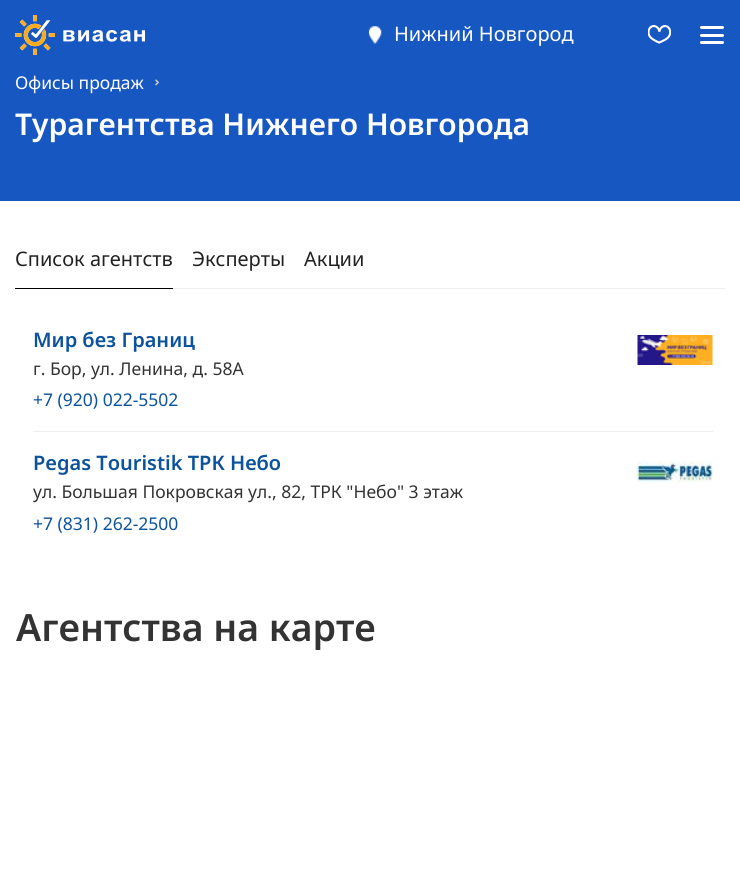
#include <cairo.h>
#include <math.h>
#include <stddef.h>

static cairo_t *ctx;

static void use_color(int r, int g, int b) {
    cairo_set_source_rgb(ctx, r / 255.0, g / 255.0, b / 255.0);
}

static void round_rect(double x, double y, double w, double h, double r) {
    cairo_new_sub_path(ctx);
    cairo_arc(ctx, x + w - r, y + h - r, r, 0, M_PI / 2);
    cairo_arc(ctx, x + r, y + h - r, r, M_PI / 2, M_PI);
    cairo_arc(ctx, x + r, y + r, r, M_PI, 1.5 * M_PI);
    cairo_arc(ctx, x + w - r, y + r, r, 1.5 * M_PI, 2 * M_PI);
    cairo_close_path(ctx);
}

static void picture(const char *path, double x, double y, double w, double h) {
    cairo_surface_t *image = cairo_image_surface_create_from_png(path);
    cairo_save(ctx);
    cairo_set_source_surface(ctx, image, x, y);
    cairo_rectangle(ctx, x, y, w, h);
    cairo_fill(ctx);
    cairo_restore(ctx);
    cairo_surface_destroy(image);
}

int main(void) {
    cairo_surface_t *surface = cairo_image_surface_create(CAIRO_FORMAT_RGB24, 740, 877);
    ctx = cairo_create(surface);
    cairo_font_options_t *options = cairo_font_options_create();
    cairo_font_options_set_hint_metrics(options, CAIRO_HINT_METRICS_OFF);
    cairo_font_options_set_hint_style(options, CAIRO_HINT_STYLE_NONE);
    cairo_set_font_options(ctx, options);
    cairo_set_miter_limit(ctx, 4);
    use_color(255, 255, 255);
    cairo_paint(ctx);
    use_color(23, 87, 193);
    cairo_rectangle(ctx, 0, 0, 740, 201);
    cairo_fill(ctx);
    picture("img1.png", 15, 15, 130, 40);
    picture("img2.png", 368, 26, 14, 18);
    cairo_select_font_face(ctx, "Noto Sans", CAIRO_FONT_SLANT_NORMAL, CAIRO_FONT_WEIGHT_NORMAL);
    cairo_set_font_size(ctx, 20);
    use_color(255, 255, 255);
    cairo_move_to(ctx, 394, 41);
    cairo_show_text(ctx, "Нижний Новгород");
    picture("img3.png", 648, 25, 23, 19);
    round_rect(700, 26, 24, 3, 1.5);
    cairo_fill(ctx);
    round_rect(700, 34, 24, 3, 1.5);
    cairo_fill(ctx);
    round_rect(700, 41, 24, 3, 1.5);
    cairo_fill(ctx);
    cairo_set_font_size(ctx, 17.5);
    cairo_move_to(ctx, 15, 89);
    cairo_show_text(ctx, "Офисы продаж");
    picture("img4.png", 155, 79, 5, 7);
    cairo_select_font_face(ctx, "Noto Sans SemiBold", CAIRO_FONT_SLANT_NORMAL, CAIRO_FONT_WEIGHT_NORMAL);
    cairo_set_font_size(ctx, 30);
    cairo_move_to(ctx, 15, 135);
    cairo_show_text(ctx, "Турагентства Нижнего Новгорода");
    use_color(0, 0, 0);
    cairo_rectangle(ctx, 15, 288, 158, 1);
    cairo_fill(ctx);
    cairo_select_font_face(ctx, "Noto Sans", CAIRO_FONT_SLANT_NORMAL, CAIRO_FONT_WEIGHT_NORMAL);
    cairo_set_font_size(ctx, 20);
    use_color(34, 34, 34);
    cairo_move_to(ctx, 15, 266);
    cairo_show_text(ctx, "Список агентств");
    cairo_move_to(ctx, 192, 266);
    cairo_show_text(ctx, "Эксперты");
    cairo_move_to(ctx, 304, 266);
    cairo_show_text(ctx, "Акции");
    use_color(238, 238, 238);
    cairo_rectangle(ctx, 173, 288, 552, 1);
    cairo_fill(ctx);
    cairo_select_font_face(ctx, "Noto Sans SemiBold", CAIRO_FONT_SLANT_NORMAL, CAIRO_FONT_WEIGHT_NORMAL);
    use_color(12, 82, 156);
    cairo_move_to(ctx, 33, 347);
    cairo_show_text(ctx, "Мир без Границ");
    picture("img5.png", 637, 335, 76, 30);
    cairo_select_font_face(ctx, "Noto Sans", CAIRO_FONT_SLANT_NORMAL, CAIRO_FONT_WEIGHT_NORMAL);
    cairo_set_font_size(ctx, 17.5);
    use_color(51, 51, 51);
    cairo_move_to(ctx, 33, 375);
    cairo_show_text(ctx, "г. Бор, ул. Ленина, д. 58А");
    use_color(12, 82, 156);
    cairo_move_to(ctx, 33, 406);
    cairo_show_text(ctx, "+7 (920) 022-5502");
    use_color(238, 238, 238);
    cairo_rectangle(ctx, 33, 431, 680, 1);
    cairo_fill(ctx);
    cairo_select_font_face(ctx, "Noto Sans SemiBold", CAIRO_FONT_SLANT_NORMAL, CAIRO_FONT_WEIGHT_NORMAL);
    cairo_set_font_size(ctx, 20);
    use_color(12, 82, 156);
    cairo_move_to(ctx, 33, 470);
    cairo_show_text(ctx, "Pegas Touristik ТРК Небо");
    picture("img6.png", 637, 461, 76, 22);
    cairo_select_font_face(ctx, "Noto Sans", CAIRO_FONT_SLANT_NORMAL, CAIRO_FONT_WEIGHT_NORMAL);
    cairo_set_font_size(ctx, 17.5);
    use_color(51, 51, 51);
    cairo_move_to(ctx, 33, 498);
    cairo_show_text(ctx, "ул. Большая Покровская ул., 82, ТРК \"Небо\" 3 этаж");
    use_color(12, 82, 156);
    cairo_move_to(ctx, 33, 530);
    cairo_show_text(ctx, "+7 (831) 262-2500");
    cairo_select_font_face(ctx, "Noto Sans SemiBold", CAIRO_FONT_SLANT_NORMAL, CAIRO_FONT_WEIGHT_NORMAL);
    cairo_set_font_size(ctx, 37.5);
    use_color(51, 51, 51);
    cairo_move_to(ctx, 16, 641);
    cairo_show_text(ctx, "Агентства на карте");
    cairo_surface_write_to_png(surface, "result.png");
    cairo_font_options_destroy(options);
    cairo_destroy(ctx);
    cairo_surface_destroy(surface);
    return 0;
}
